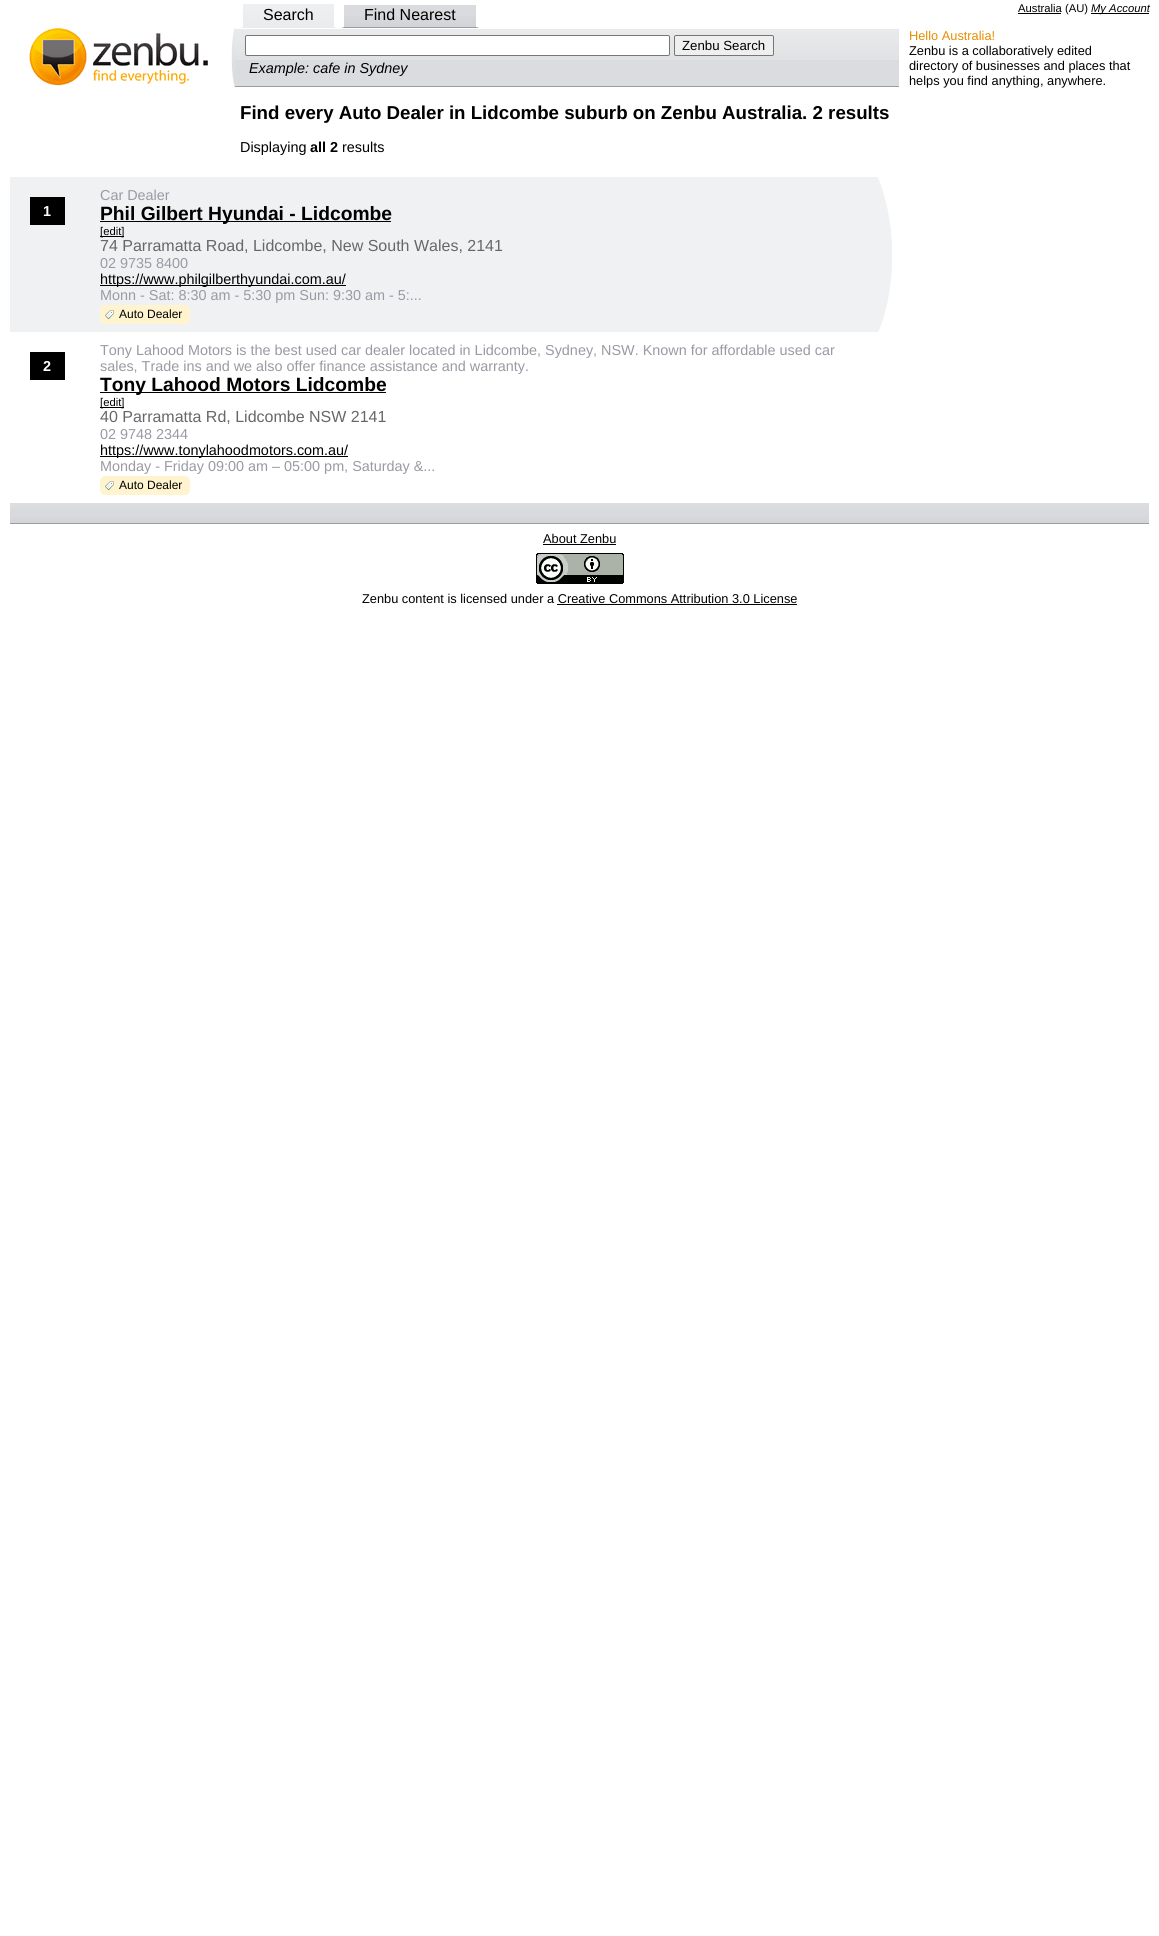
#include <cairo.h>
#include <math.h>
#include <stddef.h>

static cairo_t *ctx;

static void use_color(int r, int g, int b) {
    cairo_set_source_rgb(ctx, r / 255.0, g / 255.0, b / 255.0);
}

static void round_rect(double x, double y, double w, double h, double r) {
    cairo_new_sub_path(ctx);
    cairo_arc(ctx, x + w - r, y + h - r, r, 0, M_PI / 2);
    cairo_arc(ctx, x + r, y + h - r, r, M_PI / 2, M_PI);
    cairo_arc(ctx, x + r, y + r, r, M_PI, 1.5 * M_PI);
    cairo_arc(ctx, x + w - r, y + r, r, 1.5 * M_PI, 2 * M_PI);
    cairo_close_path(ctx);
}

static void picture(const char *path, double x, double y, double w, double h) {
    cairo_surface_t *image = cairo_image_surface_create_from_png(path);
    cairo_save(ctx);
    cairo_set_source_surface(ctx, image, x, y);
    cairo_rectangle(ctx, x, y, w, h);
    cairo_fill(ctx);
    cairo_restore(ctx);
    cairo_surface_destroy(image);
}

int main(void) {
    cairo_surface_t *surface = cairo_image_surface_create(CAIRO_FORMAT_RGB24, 1159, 1936);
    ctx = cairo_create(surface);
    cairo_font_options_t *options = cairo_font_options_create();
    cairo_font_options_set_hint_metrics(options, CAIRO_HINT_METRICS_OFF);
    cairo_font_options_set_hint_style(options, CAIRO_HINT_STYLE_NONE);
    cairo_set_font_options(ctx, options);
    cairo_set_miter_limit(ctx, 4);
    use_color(255, 255, 255);
    cairo_paint(ctx);
    use_color(0, 0, 0);
    cairo_rectangle(ctx, 1018, 13, 43, 1);
    cairo_fill(ctx);
    cairo_select_font_face(ctx, "Liberation Sans", CAIRO_FONT_SLANT_NORMAL, CAIRO_FONT_WEIGHT_NORMAL);
    cairo_set_font_size(ctx, 11.25);
    cairo_move_to(ctx, 1018, 12);
    cairo_show_text(ctx, "Australia (AU)");
    cairo_rectangle(ctx, 1091, 13, 58, 1);
    cairo_fill(ctx);
    cairo_select_font_face(ctx, "Liberation Sans", CAIRO_FONT_SLANT_ITALIC, CAIRO_FONT_WEIGHT_NORMAL);
    cairo_move_to(ctx, 1091, 12);
    cairo_show_text(ctx, "My Account");
    picture("img1.png", 240, 4, 97, 24);
    picture("img2.png", 341, 5, 138, 23);
    cairo_select_font_face(ctx, "Liberation Sans", CAIRO_FONT_SLANT_NORMAL, CAIRO_FONT_WEIGHT_NORMAL);
    cairo_set_font_size(ctx, 16);
    cairo_move_to(ctx, 263, 20);
    cairo_show_text(ctx, "Search");
    use_color(255, 255, 255);
    cairo_new_path(ctx);
    cairo_move_to(ctx, 337, 2);
    cairo_line_to(ctx, 337, 28);
    cairo_line_to(ctx, 334, 27);
    cairo_line_to(ctx, 334, 2);
    cairo_close_path(ctx);
    cairo_fill(ctx);
    use_color(234, 235, 236);
    cairo_new_path(ctx);
    cairo_move_to(ctx, 337, 28);
    cairo_line_to(ctx, 240, 28);
    cairo_line_to(ctx, 243, 27);
    cairo_line_to(ctx, 334, 27);
    cairo_close_path(ctx);
    cairo_fill(ctx);
    use_color(255, 255, 255);
    cairo_new_path(ctx);
    cairo_move_to(ctx, 240, 28);
    cairo_line_to(ctx, 240, 2);
    cairo_line_to(ctx, 243, 2);
    cairo_line_to(ctx, 243, 27);
    cairo_close_path(ctx);
    cairo_fill(ctx);
    use_color(0, 0, 0);
    cairo_move_to(ctx, 364, 20);
    cairo_show_text(ctx, "Find Nearest");
    use_color(255, 255, 255);
    cairo_new_path(ctx);
    cairo_move_to(ctx, 479, 2);
    cairo_line_to(ctx, 479, 28);
    cairo_line_to(ctx, 476, 27);
    cairo_line_to(ctx, 476, 2);
    cairo_close_path(ctx);
    cairo_fill(ctx);
    use_color(155, 156, 159);
    cairo_new_path(ctx);
    cairo_move_to(ctx, 479, 28);
    cairo_line_to(ctx, 341, 28);
    cairo_line_to(ctx, 344, 27);
    cairo_line_to(ctx, 476, 27);
    cairo_close_path(ctx);
    cairo_fill(ctx);
    use_color(255, 255, 255);
    cairo_new_path(ctx);
    cairo_move_to(ctx, 341, 28);
    cairo_line_to(ctx, 341, 2);
    cairo_line_to(ctx, 344, 2);
    cairo_line_to(ctx, 344, 27);
    cairo_close_path(ctx);
    cairo_fill(ctx);
    picture("img3.png", 231, 28, 4, 60);
    picture("img4.png", 29, 28, 179, 58);
    use_color(219, 220, 223);
    cairo_rectangle(ctx, 235, 60, 664, 26);
    cairo_fill(ctx);
    picture("img5.png", 235, 29, 664, 31);
    use_color(155, 156, 159);
    cairo_rectangle(ctx, 235, 86, 664, 1);
    cairo_fill(ctx);
    use_color(255, 255, 255);
    round_rect(245.5, 35.5, 424, 20, 1.5);
    cairo_fill_preserve(ctx);
    use_color(118, 118, 118);
    cairo_set_line_width(ctx, 1);
    cairo_stroke(ctx);
    use_color(239, 239, 239);
    round_rect(674.5, 35.5, 99, 20, 1.5);
    cairo_fill_preserve(ctx);
    use_color(118, 118, 118);
    cairo_stroke(ctx);
    cairo_set_font_size(ctx, 13.25);
    use_color(0, 0, 0);
    cairo_move_to(ctx, 682, 50);
    cairo_show_text(ctx, "Zenbu Search");
    cairo_select_font_face(ctx, "Liberation Sans", CAIRO_FONT_SLANT_ITALIC, CAIRO_FONT_WEIGHT_NORMAL);
    cairo_set_font_size(ctx, 14.4);
    cairo_move_to(ctx, 249, 73);
    cairo_show_text(ctx, "Example: cafe in Sydney");
    cairo_select_font_face(ctx, "Liberation Sans", CAIRO_FONT_SLANT_NORMAL, CAIRO_FONT_WEIGHT_NORMAL);
    cairo_set_font_size(ctx, 12.8);
    use_color(231, 141, 0);
    cairo_move_to(ctx, 909, 40);
    cairo_show_text(ctx, "Hello Australia!");
    use_color(0, 0, 0);
    cairo_move_to(ctx, 909, 55);
    cairo_show_text(ctx, "Zenbu is a collaboratively edited");
    cairo_move_to(ctx, 909, 70);
    cairo_show_text(ctx, "directory of businesses and places that");
    cairo_move_to(ctx, 909, 85);
    cairo_show_text(ctx, "helps you find anything, anywhere.");
    cairo_select_font_face(ctx, "Liberation Sans", CAIRO_FONT_SLANT_NORMAL, CAIRO_FONT_WEIGHT_BOLD);
    cairo_set_font_size(ctx, 18.7);
    cairo_move_to(ctx, 240, 119);
    cairo_show_text(ctx, "Find every Auto Dealer in Lidcombe suburb on Zenbu Australia. 2 results");
    cairo_select_font_face(ctx, "Liberation Sans", CAIRO_FONT_SLANT_NORMAL, CAIRO_FONT_WEIGHT_NORMAL);
    cairo_set_font_size(ctx, 14.4);
    cairo_move_to(ctx, 240, 152);
    cairo_show_text(ctx, "Displaying");
    cairo_select_font_face(ctx, "Liberation Sans", CAIRO_FONT_SLANT_NORMAL, CAIRO_FONT_WEIGHT_BOLD);
    cairo_move_to(ctx, 310, 152);
    cairo_show_text(ctx, "all 2");
    cairo_select_font_face(ctx, "Liberation Sans", CAIRO_FONT_SLANT_NORMAL, CAIRO_FONT_WEIGHT_NORMAL);
    cairo_move_to(ctx, 342, 152);
    cairo_show_text(ctx, "results");
    use_color(240, 241, 243);
    cairo_rectangle(ctx, 10, 177, 868, 155);
    cairo_fill(ctx);
    picture("img6.png", 878, 177, 15, 155);
    use_color(0, 0, 0);
    cairo_rectangle(ctx, 30, 197, 35, 28);
    cairo_fill(ctx);
    cairo_select_font_face(ctx, "Liberation Sans", CAIRO_FONT_SLANT_NORMAL, CAIRO_FONT_WEIGHT_BOLD);
    use_color(255, 255, 255);
    cairo_move_to(ctx, 43, 216);
    cairo_show_text(ctx, "1");
    cairo_select_font_face(ctx, "Liberation Sans", CAIRO_FONT_SLANT_NORMAL, CAIRO_FONT_WEIGHT_NORMAL);
    use_color(153, 154, 163);
    cairo_move_to(ctx, 100, 200);
    cairo_show_text(ctx, "Car Dealer");
    use_color(0, 0, 0);
    cairo_rectangle(ctx, 100, 221, 291, 1);
    cairo_fill(ctx);
    cairo_select_font_face(ctx, "Liberation Sans", CAIRO_FONT_SLANT_NORMAL, CAIRO_FONT_WEIGHT_BOLD);
    cairo_set_font_size(ctx, 19.25);
    cairo_move_to(ctx, 100, 220);
    cairo_show_text(ctx, "Phil Gilbert Hyundai - Lidcombe");
    cairo_rectangle(ctx, 100, 236, 24, 1);
    cairo_fill(ctx);
    cairo_select_font_face(ctx, "Liberation Sans", CAIRO_FONT_SLANT_NORMAL, CAIRO_FONT_WEIGHT_NORMAL);
    cairo_set_font_size(ctx, 11.25);
    cairo_move_to(ctx, 100, 235);
    cairo_show_text(ctx, "[edit]");
    cairo_set_font_size(ctx, 16);
    use_color(102, 103, 104);
    cairo_move_to(ctx, 100, 251);
    cairo_show_text(ctx, "74 Parramatta Road, Lidcombe, New South Wales, 2141");
    cairo_set_font_size(ctx, 14.4);
    use_color(153, 154, 163);
    cairo_move_to(ctx, 100, 268);
    cairo_show_text(ctx, "02 9735 8400");
    use_color(0, 0, 0);
    cairo_rectangle(ctx, 100, 285, 246, 1);
    cairo_fill(ctx);
    cairo_move_to(ctx, 100, 284);
    cairo_show_text(ctx, "https://www.philgilberthyundai.com.au/");
    use_color(153, 154, 163);
    cairo_move_to(ctx, 100, 300);
    cairo_show_text(ctx, "Monn - Sat: 8:30 am - 5:30 pm Sun: 9:30 am - 5:...");
    use_color(255, 244, 207);
    round_rect(100, 305, 90, 19, 5);
    cairo_fill(ctx);
    picture("img7.png", 105, 310, 9, 9);
    cairo_set_font_size(ctx, 12);
    use_color(0, 0, 0);
    cairo_move_to(ctx, 119, 318);
    cairo_show_text(ctx, "Auto Dealer");
    cairo_rectangle(ctx, 30, 352, 35, 28);
    cairo_fill(ctx);
    cairo_select_font_face(ctx, "Liberation Sans", CAIRO_FONT_SLANT_NORMAL, CAIRO_FONT_WEIGHT_BOLD);
    cairo_set_font_size(ctx, 14.4);
    use_color(255, 255, 255);
    cairo_move_to(ctx, 43, 371);
    cairo_show_text(ctx, "2");
    cairo_select_font_face(ctx, "Liberation Sans", CAIRO_FONT_SLANT_NORMAL, CAIRO_FONT_WEIGHT_NORMAL);
    use_color(153, 154, 163);
    cairo_move_to(ctx, 100, 355);
    cairo_show_text(ctx, "Tony Lahood Motors is the best used car dealer located in Lidcombe, Sydney, NSW. Known for affordable used car");
    cairo_move_to(ctx, 100, 371);
    cairo_show_text(ctx, "sales, Trade ins and we also offer finance assistance and warranty.");
    use_color(0, 0, 0);
    cairo_rectangle(ctx, 100, 392, 286, 1);
    cairo_fill(ctx);
    cairo_select_font_face(ctx, "Liberation Sans", CAIRO_FONT_SLANT_NORMAL, CAIRO_FONT_WEIGHT_BOLD);
    cairo_set_font_size(ctx, 19.25);
    cairo_move_to(ctx, 100, 391);
    cairo_show_text(ctx, "Tony Lahood Motors Lidcombe");
    cairo_rectangle(ctx, 100, 407, 24, 1);
    cairo_fill(ctx);
    cairo_select_font_face(ctx, "Liberation Sans", CAIRO_FONT_SLANT_NORMAL, CAIRO_FONT_WEIGHT_NORMAL);
    cairo_set_font_size(ctx, 11.25);
    cairo_move_to(ctx, 100, 406);
    cairo_show_text(ctx, "[edit]");
    cairo_set_font_size(ctx, 16);
    use_color(102, 103, 104);
    cairo_move_to(ctx, 100, 422);
    cairo_show_text(ctx, "40 Parramatta Rd, Lidcombe NSW 2141");
    cairo_set_font_size(ctx, 14.4);
    use_color(153, 154, 163);
    cairo_move_to(ctx, 100, 439);
    cairo_show_text(ctx, "02 9748 2344");
    use_color(0, 0, 0);
    cairo_rectangle(ctx, 100, 456, 248, 1);
    cairo_fill(ctx);
    cairo_move_to(ctx, 100, 455);
    cairo_show_text(ctx, "https://www.tonylahoodmotors.com.au/");
    use_color(153, 154, 163);
    cairo_move_to(ctx, 100, 471);
    cairo_show_text(ctx, "Monday - Friday 09:00 am – 05:00 pm, Saturday &...");
    use_color(255, 244, 207);
    round_rect(100, 476, 90, 19, 5);
    cairo_fill(ctx);
    picture("img7.png", 105, 481, 9, 9);
    cairo_set_font_size(ctx, 12);
    use_color(0, 0, 0);
    cairo_move_to(ctx, 119, 489);
    cairo_show_text(ctx, "Auto Dealer");
    picture("img8.png", 10, 503, 1139, 20);
    use_color(155, 156, 159);
    cairo_rectangle(ctx, 10, 523, 1139, 1);
    cairo_fill(ctx);
    cairo_set_font_size(ctx, 12.8);
    use_color(0, 0, 0);
    cairo_move_to(ctx, 543, 543);
    cairo_show_text(ctx, "About Zenbu");
    cairo_rectangle(ctx, 543, 544, 73, 1);
    cairo_fill(ctx);
    picture("img9.png", 536, 553, 88, 31);
    cairo_move_to(ctx, 362, 603);
    cairo_show_text(ctx, "Zenbu content is licensed under a Creative Commons Attribution 3.0 License");
    cairo_rectangle(ctx, 557, 604, 240, 1);
    cairo_fill(ctx);
    cairo_surface_write_to_png(surface, "result.png");
    cairo_font_options_destroy(options);
    cairo_destroy(ctx);
    cairo_surface_destroy(surface);
    return 0;
}
